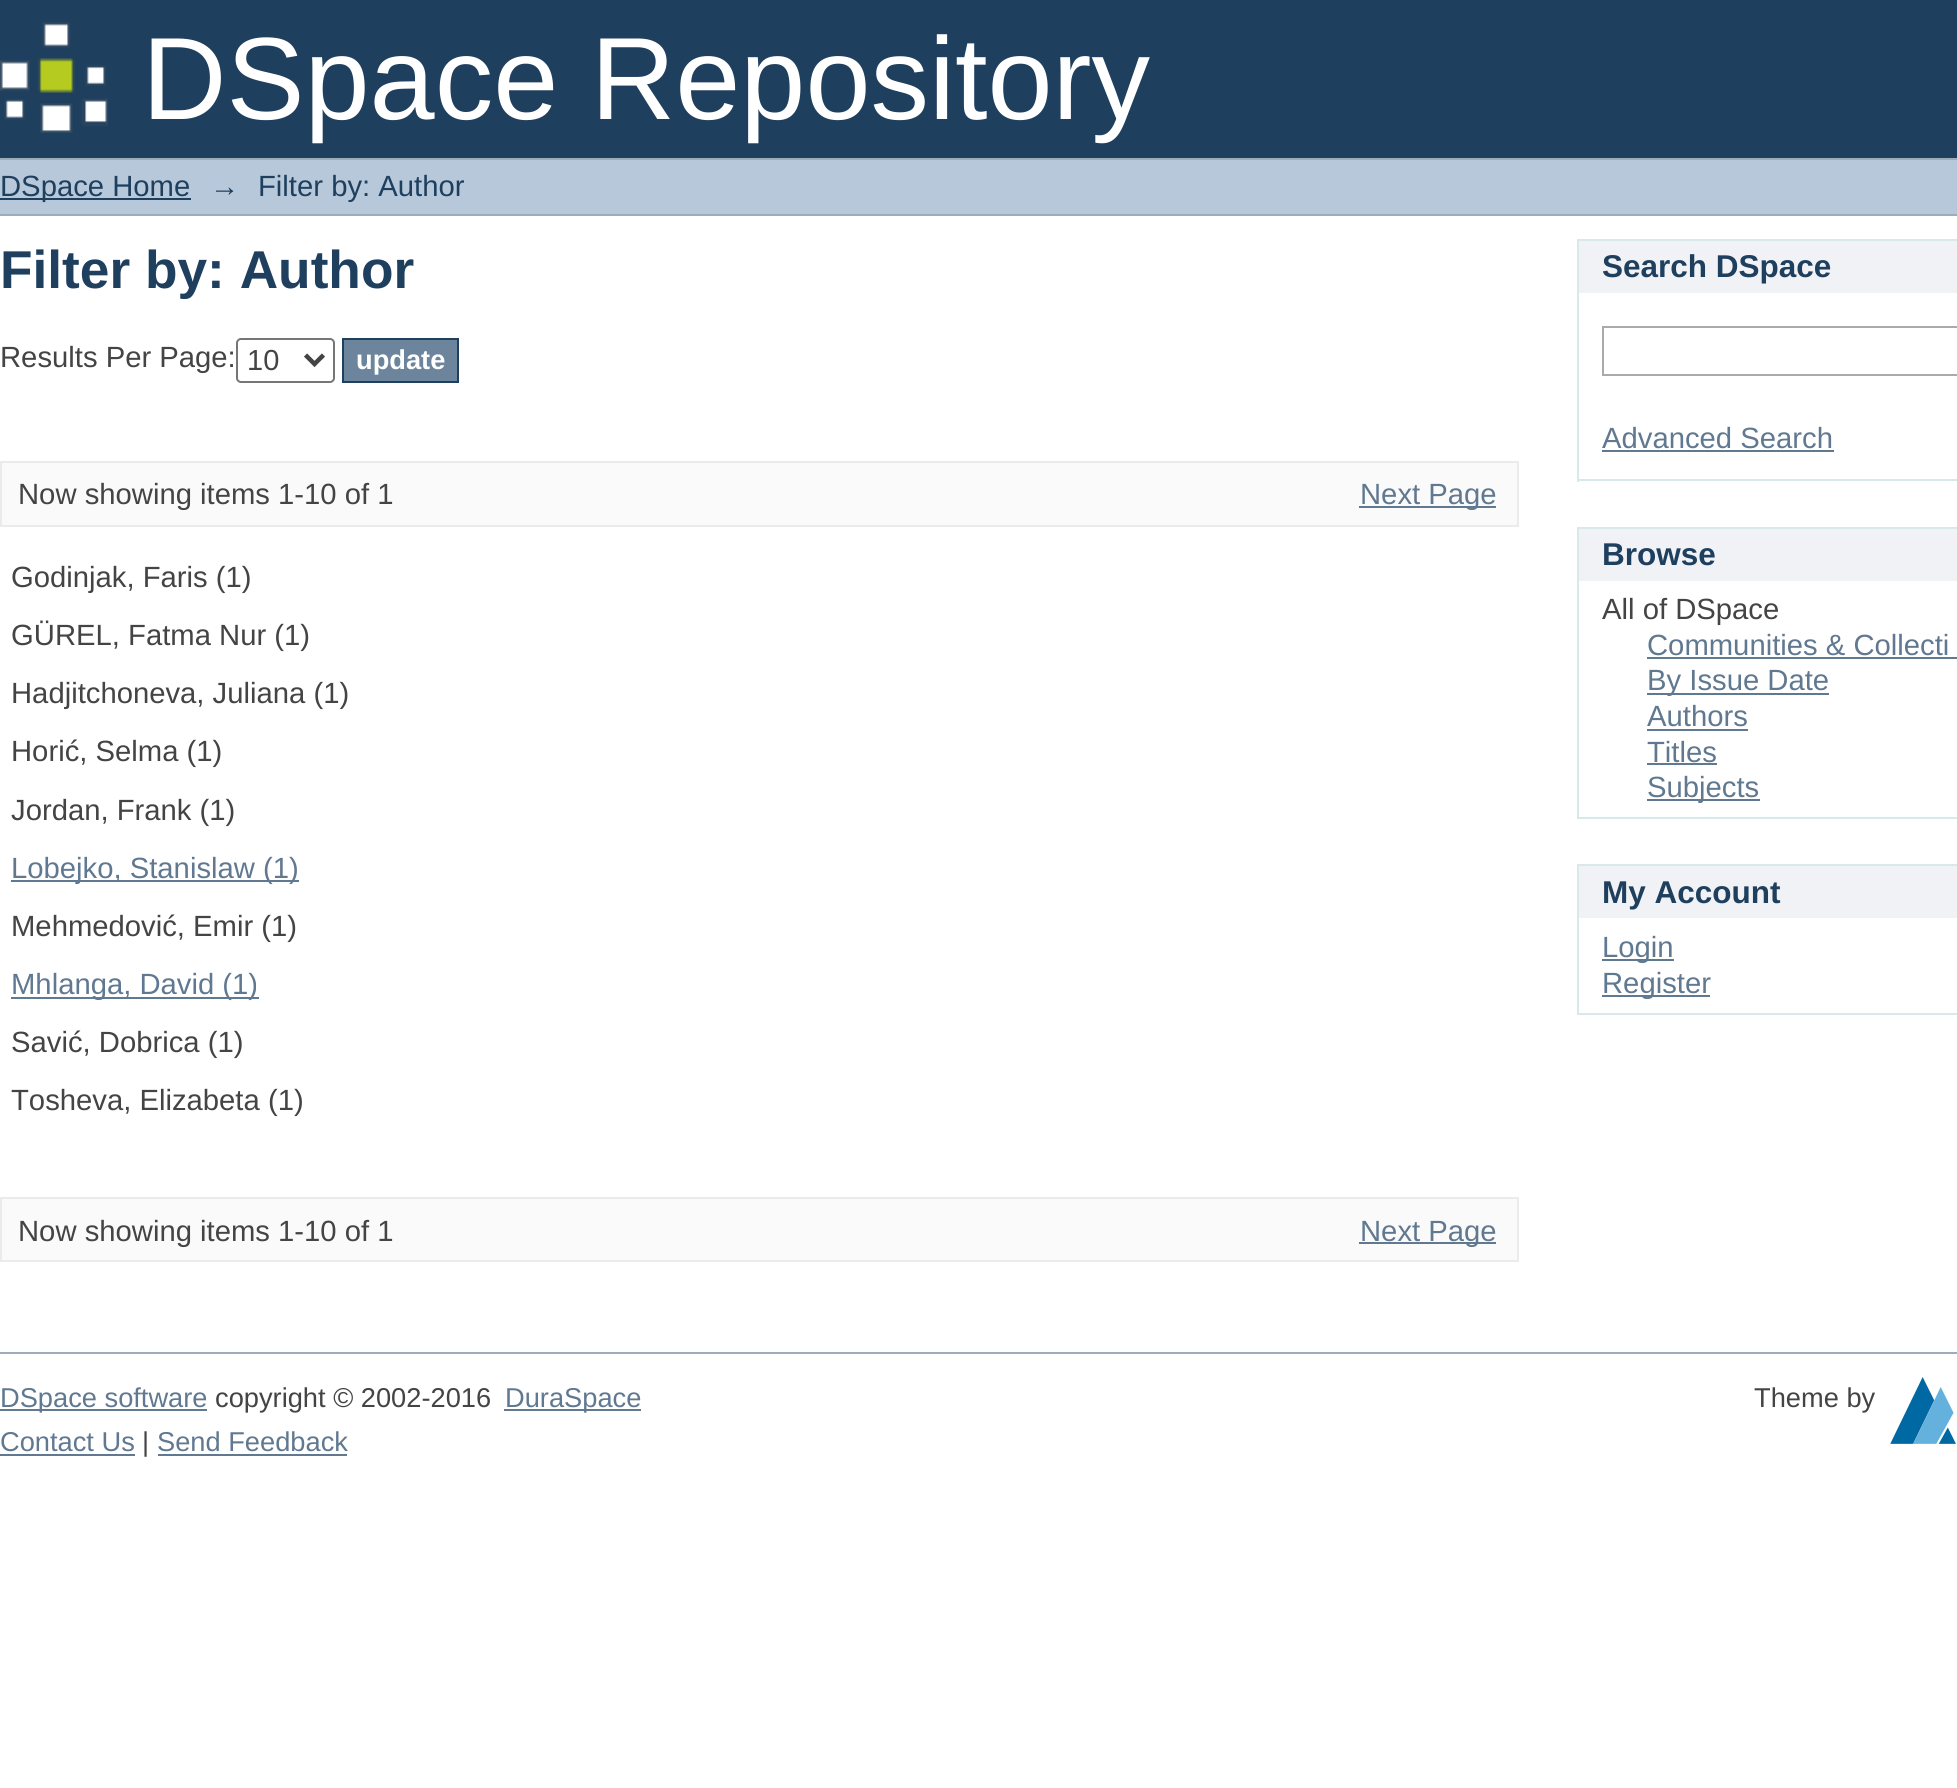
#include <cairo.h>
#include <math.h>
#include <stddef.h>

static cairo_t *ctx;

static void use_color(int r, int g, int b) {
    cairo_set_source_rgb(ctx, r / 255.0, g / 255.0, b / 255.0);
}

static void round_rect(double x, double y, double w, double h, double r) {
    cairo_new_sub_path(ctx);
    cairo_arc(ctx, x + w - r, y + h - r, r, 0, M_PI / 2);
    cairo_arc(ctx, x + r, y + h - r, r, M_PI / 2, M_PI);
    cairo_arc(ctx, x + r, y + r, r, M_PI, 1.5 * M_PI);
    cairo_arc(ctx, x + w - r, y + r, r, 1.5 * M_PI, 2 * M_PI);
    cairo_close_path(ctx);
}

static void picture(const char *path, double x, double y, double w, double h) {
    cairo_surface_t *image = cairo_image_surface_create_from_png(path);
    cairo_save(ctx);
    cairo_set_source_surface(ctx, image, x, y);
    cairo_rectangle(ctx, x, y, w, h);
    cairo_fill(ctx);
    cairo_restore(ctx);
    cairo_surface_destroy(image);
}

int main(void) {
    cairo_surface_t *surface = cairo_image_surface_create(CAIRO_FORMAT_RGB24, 1957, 1788);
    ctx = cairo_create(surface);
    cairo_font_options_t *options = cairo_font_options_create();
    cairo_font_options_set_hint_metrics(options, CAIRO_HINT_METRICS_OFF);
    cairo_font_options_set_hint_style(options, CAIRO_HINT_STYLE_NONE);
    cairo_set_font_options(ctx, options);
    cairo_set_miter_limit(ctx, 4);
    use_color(255, 255, 255);
    cairo_paint(ctx);
    use_color(31, 63, 94);
    cairo_rectangle(ctx, 0, 0, 1957, 158);
    cairo_fill(ctx);
    picture("img1.png", 0, 22, 108, 111);
    cairo_select_font_face(ctx, "Liberation Sans", CAIRO_FONT_SLANT_NORMAL, CAIRO_FONT_WEIGHT_NORMAL);
    cairo_set_font_size(ctx, 117);
    use_color(255, 255, 255);
    cairo_move_to(ctx, 142, 119);
    cairo_show_text(ctx, "DSpace Repository");
    use_color(182, 200, 217);
    cairo_rectangle(ctx, 0, 160, 1957, 54);
    cairo_fill(ctx);
    use_color(156, 172, 186);
    cairo_rectangle(ctx, 0, 158, 1957, 2);
    cairo_fill(ctx);
    cairo_rectangle(ctx, 0, 214, 1957, 2);
    cairo_fill(ctx);
    use_color(31, 63, 94);
    cairo_rectangle(ctx, 0, 198, 191, 2);
    cairo_fill(ctx);
    cairo_set_font_size(ctx, 29.25);
    cairo_move_to(ctx, 0, 196);
    cairo_show_text(ctx, "DSpace Home");
    cairo_move_to(ctx, 210, 196);
    cairo_show_text(ctx, "→");
    cairo_move_to(ctx, 258, 196);
    cairo_show_text(ctx, "Filter by: Author");
    cairo_select_font_face(ctx, "Liberation Sans", CAIRO_FONT_SLANT_NORMAL, CAIRO_FONT_WEIGHT_BOLD);
    cairo_set_font_size(ctx, 53.25);
    cairo_move_to(ctx, 0, 288);
    cairo_show_text(ctx, "Filter by: Author");
    cairo_select_font_face(ctx, "Liberation Sans", CAIRO_FONT_SLANT_NORMAL, CAIRO_FONT_WEIGHT_NORMAL);
    cairo_set_font_size(ctx, 29.25);
    use_color(68, 68, 68);
    cairo_move_to(ctx, 0, 367);
    cairo_show_text(ctx, "Results Per Page:");
    round_rect(237, 339, 97, 43, 4);
    use_color(118, 118, 118);
    cairo_stroke(ctx);
    cairo_new_path(ctx);
    cairo_move_to(ctx, 305.5, 355);
    cairo_line_to(ctx, 314.5, 364);
    cairo_line_to(ctx, 323.5, 355);
    use_color(68, 68, 68);
    cairo_set_line_width(ctx, 4.5);
    cairo_stroke(ctx);
    cairo_set_font_size(ctx, 29);
    cairo_move_to(ctx, 247, 370);
    cairo_show_text(ctx, "10");
    use_color(109, 133, 156);
    cairo_rectangle(ctx, 343, 339, 115, 43);
    cairo_fill_preserve(ctx);
    use_color(31, 63, 94);
    cairo_set_line_width(ctx, 2);
    cairo_stroke(ctx);
    cairo_select_font_face(ctx, "Liberation Sans", CAIRO_FONT_SLANT_NORMAL, CAIRO_FONT_WEIGHT_BOLD);
    cairo_set_font_size(ctx, 27.25);
    use_color(255, 255, 255);
    cairo_move_to(ctx, 356, 369);
    cairo_show_text(ctx, "update");
    use_color(250, 250, 250);
    cairo_rectangle(ctx, 1, 462, 1517, 64);
    cairo_fill_preserve(ctx);
    use_color(235, 235, 235);
    cairo_stroke(ctx);
    cairo_select_font_face(ctx, "Liberation Sans", CAIRO_FONT_SLANT_NORMAL, CAIRO_FONT_WEIGHT_NORMAL);
    cairo_set_font_size(ctx, 29.25);
    use_color(68, 68, 68);
    cairo_move_to(ctx, 18, 504);
    cairo_show_text(ctx, "Now showing items 1-10 of 1");
    use_color(96, 120, 144);
    cairo_rectangle(ctx, 1359, 506, 137, 2);
    cairo_fill(ctx);
    cairo_move_to(ctx, 1360, 504);
    cairo_show_text(ctx, "Next Page");
    use_color(68, 68, 68);
    cairo_move_to(ctx, 11, 587);
    cairo_show_text(ctx, "Godinjak, Faris (1)");
    cairo_move_to(ctx, 11, 645);
    cairo_show_text(ctx, "GÜREL, Fatma Nur (1)");
    cairo_move_to(ctx, 11, 703);
    cairo_show_text(ctx, "Hadjitchoneva, Juliana (1)");
    cairo_move_to(ctx, 11, 761);
    cairo_show_text(ctx, "Horić, Selma (1)");
    cairo_move_to(ctx, 11, 820);
    cairo_show_text(ctx, "Jordan, Frank (1)");
    use_color(96, 120, 144);
    cairo_rectangle(ctx, 11, 880, 288, 2);
    cairo_fill(ctx);
    cairo_move_to(ctx, 11, 878);
    cairo_show_text(ctx, "Lobejko, Stanislaw (1)");
    use_color(68, 68, 68);
    cairo_move_to(ctx, 11, 936);
    cairo_show_text(ctx, "Mehmedović, Emir (1)");
    use_color(96, 120, 144);
    cairo_rectangle(ctx, 11, 997, 248, 2);
    cairo_fill(ctx);
    cairo_move_to(ctx, 11, 994);
    cairo_show_text(ctx, "Mhlanga, David (1)");
    use_color(68, 68, 68);
    cairo_move_to(ctx, 11, 1052);
    cairo_show_text(ctx, "Savić, Dobrica (1)");
    cairo_move_to(ctx, 11, 1110);
    cairo_show_text(ctx, "Tosheva, Elizabeta (1)");
    use_color(250, 250, 250);
    cairo_rectangle(ctx, 1, 1198, 1517, 63);
    cairo_fill_preserve(ctx);
    use_color(235, 235, 235);
    cairo_stroke(ctx);
    use_color(68, 68, 68);
    cairo_move_to(ctx, 18, 1241);
    cairo_show_text(ctx, "Now showing items 1-10 of 1");
    use_color(96, 120, 144);
    cairo_rectangle(ctx, 1359, 1242, 137, 2);
    cairo_fill(ctx);
    cairo_move_to(ctx, 1360, 1241);
    cairo_show_text(ctx, "Next Page");
    use_color(240, 242, 245);
    cairo_rectangle(ctx, 1579, 241, 378, 52);
    cairo_fill(ctx);
    use_color(216, 232, 235);
    cairo_rectangle(ctx, 1577, 239, 380, 2);
    cairo_fill(ctx);
    cairo_rectangle(ctx, 1577, 239, 2, 54);
    cairo_fill(ctx);
    cairo_select_font_face(ctx, "Liberation Sans", CAIRO_FONT_SLANT_NORMAL, CAIRO_FONT_WEIGHT_BOLD);
    cairo_set_font_size(ctx, 31.5);
    use_color(31, 63, 94);
    cairo_move_to(ctx, 1602, 277);
    cairo_show_text(ctx, "Search DSpace");
    use_color(216, 232, 235);
    cairo_rectangle(ctx, 1577, 479, 380, 2);
    cairo_fill(ctx);
    cairo_rectangle(ctx, 1577, 293, 2, 189);
    cairo_fill(ctx);
    cairo_rectangle(ctx, 1603, 327, 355, 48);
    use_color(170, 170, 170);
    cairo_stroke(ctx);
    cairo_select_font_face(ctx, "Liberation Sans", CAIRO_FONT_SLANT_NORMAL, CAIRO_FONT_WEIGHT_NORMAL);
    cairo_set_font_size(ctx, 29.25);
    use_color(96, 120, 144);
    cairo_move_to(ctx, 1602, 448);
    cairo_show_text(ctx, "Advanced Search");
    cairo_rectangle(ctx, 1602, 450, 232, 2);
    cairo_fill(ctx);
    use_color(240, 242, 245);
    cairo_rectangle(ctx, 1579, 529, 378, 52);
    cairo_fill(ctx);
    use_color(216, 232, 235);
    cairo_rectangle(ctx, 1577, 527, 380, 2);
    cairo_fill(ctx);
    cairo_rectangle(ctx, 1577, 527, 2, 54);
    cairo_fill(ctx);
    cairo_select_font_face(ctx, "Liberation Sans", CAIRO_FONT_SLANT_NORMAL, CAIRO_FONT_WEIGHT_BOLD);
    cairo_set_font_size(ctx, 31.5);
    use_color(31, 63, 94);
    cairo_move_to(ctx, 1602, 565);
    cairo_show_text(ctx, "Browse");
    use_color(216, 232, 235);
    cairo_rectangle(ctx, 1577, 817, 380, 2);
    cairo_fill(ctx);
    cairo_rectangle(ctx, 1577, 581, 2, 238);
    cairo_fill(ctx);
    cairo_select_font_face(ctx, "Liberation Sans", CAIRO_FONT_SLANT_NORMAL, CAIRO_FONT_WEIGHT_NORMAL);
    cairo_set_font_size(ctx, 29.25);
    use_color(68, 68, 68);
    cairo_move_to(ctx, 1602, 619);
    cairo_show_text(ctx, "All of DSpace");
    use_color(96, 120, 144);
    cairo_move_to(ctx, 1647, 655);
    cairo_show_text(ctx, "Communities & Collecti");
    cairo_rectangle(ctx, 1647, 657, 310, 2);
    cairo_fill(ctx);
    cairo_rectangle(ctx, 1647, 693, 182, 2);
    cairo_fill(ctx);
    cairo_move_to(ctx, 1647, 690);
    cairo_show_text(ctx, "By Issue Date");
    cairo_move_to(ctx, 1647, 726);
    cairo_show_text(ctx, "Authors");
    cairo_rectangle(ctx, 1647, 729, 101, 2);
    cairo_fill(ctx);
    cairo_move_to(ctx, 1647, 762);
    cairo_show_text(ctx, "Titles");
    cairo_rectangle(ctx, 1647, 763, 70, 2);
    cairo_fill(ctx);
    cairo_rectangle(ctx, 1647, 799, 113, 2);
    cairo_fill(ctx);
    cairo_move_to(ctx, 1647, 797);
    cairo_show_text(ctx, "Subjects");
    use_color(240, 242, 245);
    cairo_rectangle(ctx, 1579, 866, 378, 52);
    cairo_fill(ctx);
    use_color(216, 232, 235);
    cairo_rectangle(ctx, 1577, 864, 380, 2);
    cairo_fill(ctx);
    cairo_rectangle(ctx, 1577, 864, 2, 54);
    cairo_fill(ctx);
    cairo_select_font_face(ctx, "Liberation Sans", CAIRO_FONT_SLANT_NORMAL, CAIRO_FONT_WEIGHT_BOLD);
    cairo_set_font_size(ctx, 31.5);
    use_color(31, 63, 94);
    cairo_move_to(ctx, 1602, 903);
    cairo_show_text(ctx, "My Account");
    use_color(216, 232, 235);
    cairo_rectangle(ctx, 1577, 1013, 380, 2);
    cairo_fill(ctx);
    cairo_rectangle(ctx, 1577, 918, 2, 97);
    cairo_fill(ctx);
    use_color(96, 120, 144);
    cairo_rectangle(ctx, 1602, 959, 72, 2);
    cairo_fill(ctx);
    cairo_select_font_face(ctx, "Liberation Sans", CAIRO_FONT_SLANT_NORMAL, CAIRO_FONT_WEIGHT_NORMAL);
    cairo_set_font_size(ctx, 29.25);
    cairo_move_to(ctx, 1602, 957);
    cairo_show_text(ctx, "Login");
    cairo_rectangle(ctx, 1602, 995, 108, 2);
    cairo_fill(ctx);
    cairo_move_to(ctx, 1602, 993);
    cairo_show_text(ctx, "Register");
    use_color(156, 172, 186);
    cairo_rectangle(ctx, 0, 1352, 1957, 2);
    cairo_fill(ctx);
    use_color(96, 120, 144);
    cairo_rectangle(ctx, 0, 1409, 207, 2);
    cairo_fill(ctx);
    cairo_set_font_size(ctx, 27.25);
    cairo_move_to(ctx, 0, 1407);
    cairo_show_text(ctx, "DSpace software");
    use_color(68, 68, 68);
    cairo_move_to(ctx, 215, 1407);
    cairo_show_text(ctx, "copyright © 2002-2016");
    use_color(96, 120, 144);
    cairo_rectangle(ctx, 504, 1409, 137, 2);
    cairo_fill(ctx);
    cairo_move_to(ctx, 505, 1407);
    cairo_show_text(ctx, "DuraSpace");
    use_color(68, 68, 68);
    cairo_move_to(ctx, 1754, 1407);
    cairo_show_text(ctx, "Theme by");
    picture("img2.png", 1890, 1377, 66, 67);
    use_color(96, 120, 144);
    cairo_move_to(ctx, 0, 1451);
    cairo_show_text(ctx, "Contact Us");
    cairo_rectangle(ctx, 0, 1454, 135, 2);
    cairo_fill(ctx);
    use_color(68, 68, 68);
    cairo_move_to(ctx, 142, 1451);
    cairo_show_text(ctx, "|");
    use_color(96, 120, 144);
    cairo_move_to(ctx, 157, 1451);
    cairo_show_text(ctx, "Send Feedback");
    cairo_rectangle(ctx, 158, 1454, 189, 2);
    cairo_fill(ctx);
    cairo_surface_write_to_png(surface, "result.png");
    cairo_font_options_destroy(options);
    cairo_destroy(ctx);
    cairo_surface_destroy(surface);
    return 0;
}
